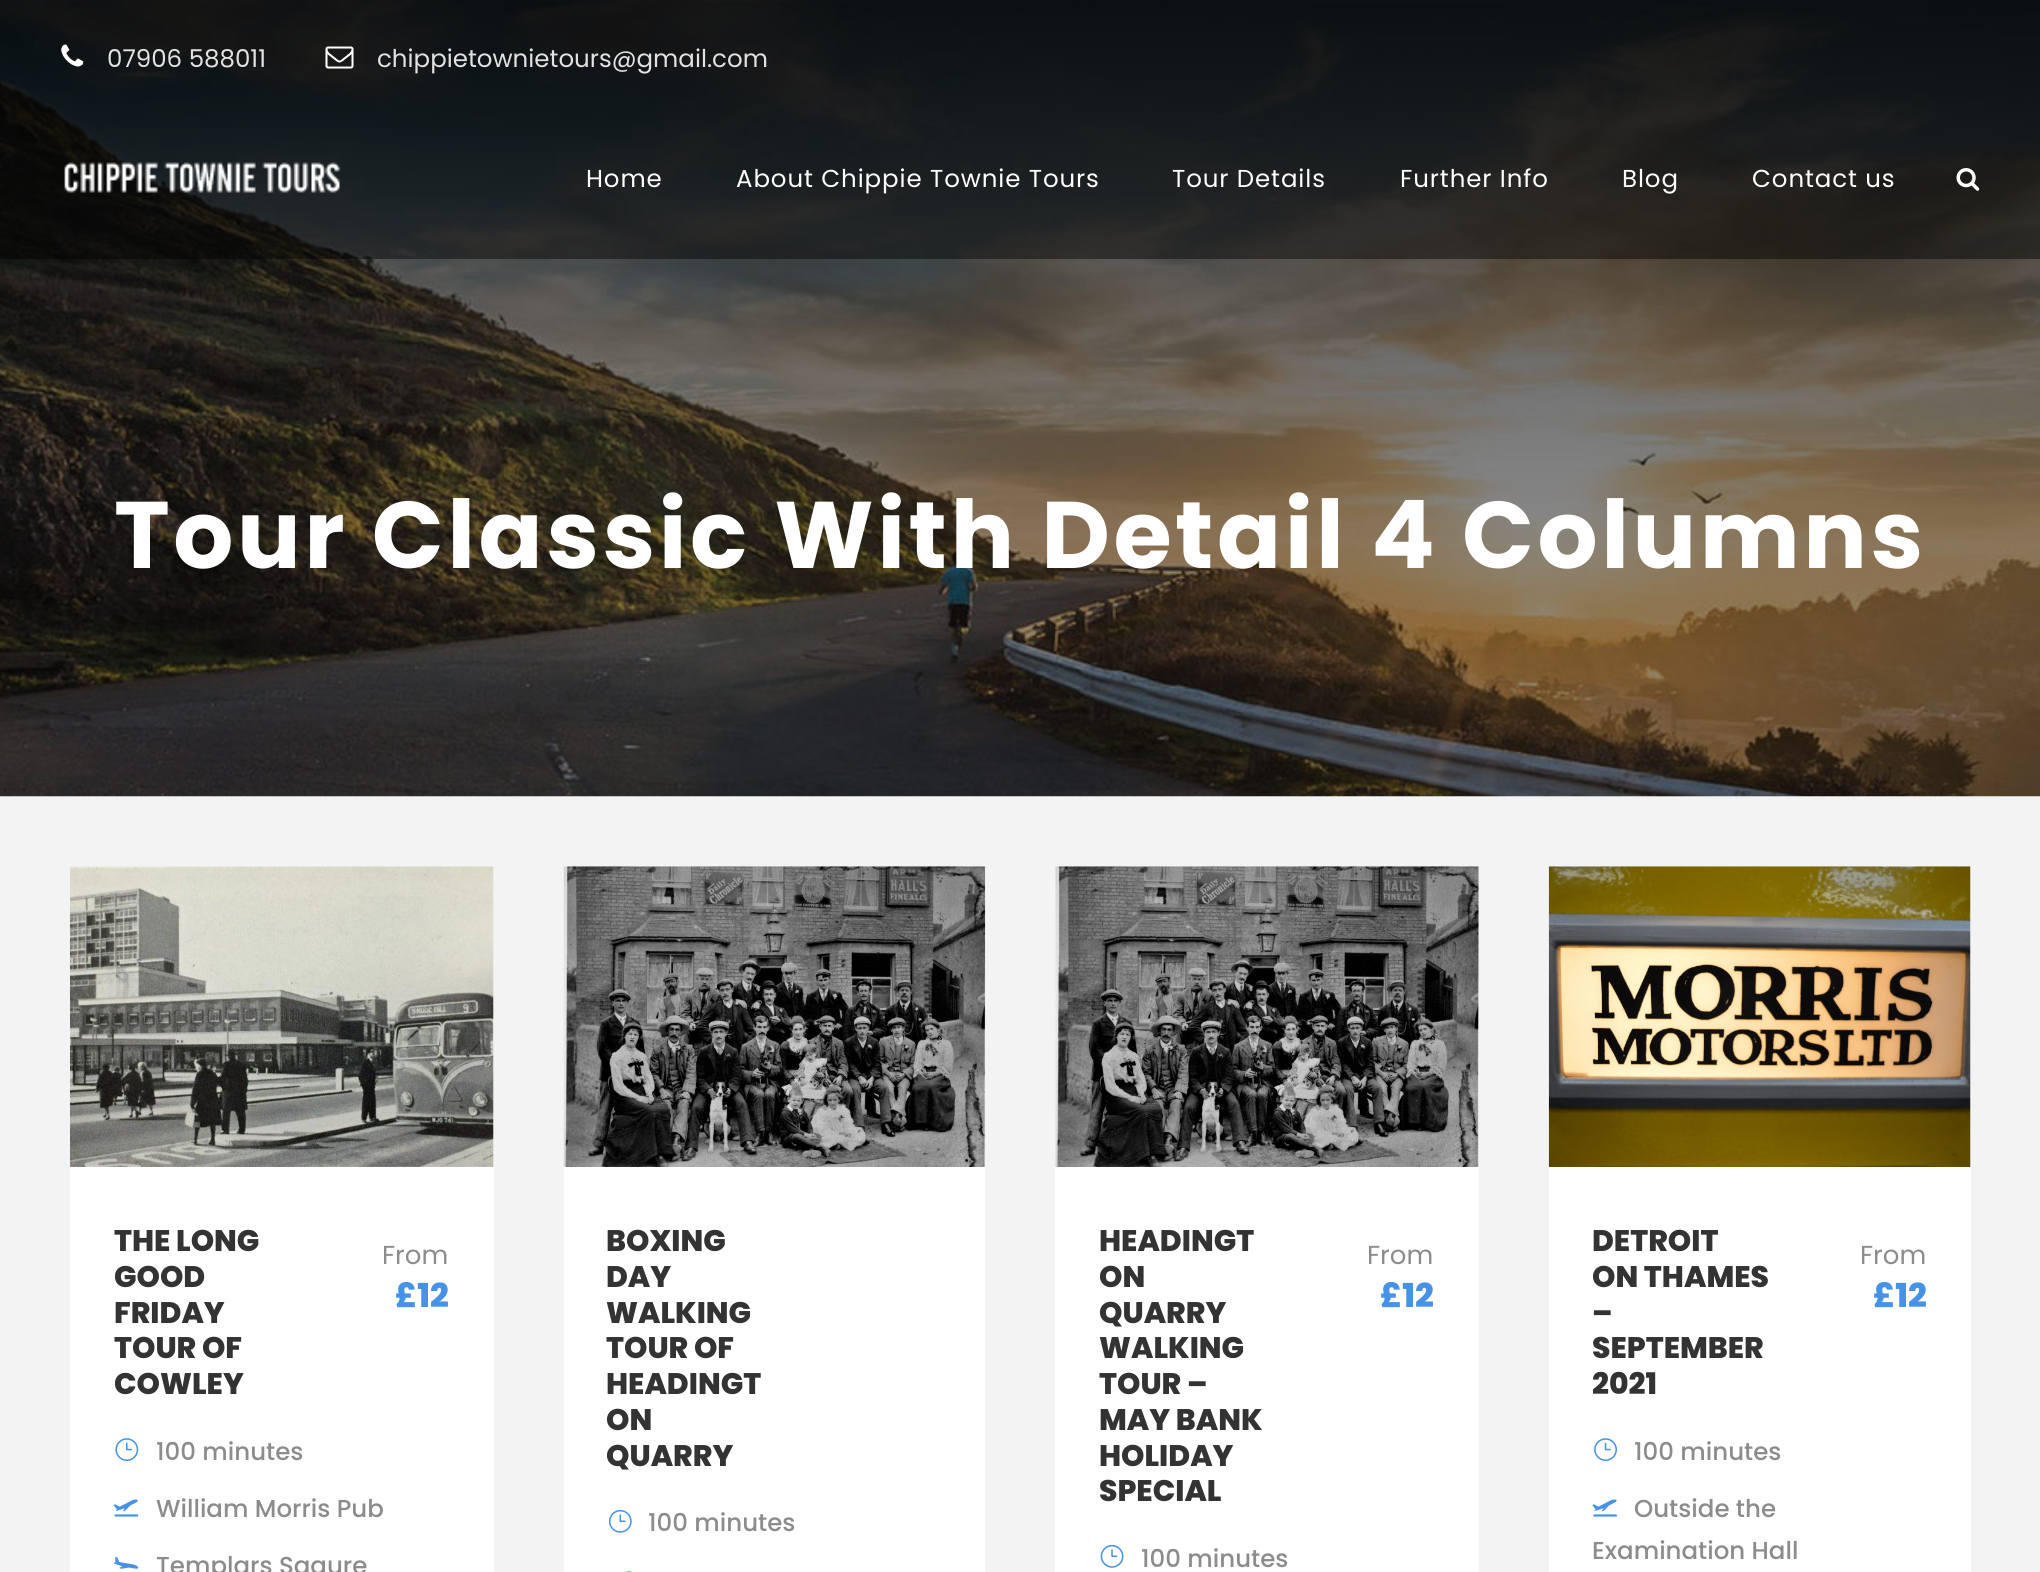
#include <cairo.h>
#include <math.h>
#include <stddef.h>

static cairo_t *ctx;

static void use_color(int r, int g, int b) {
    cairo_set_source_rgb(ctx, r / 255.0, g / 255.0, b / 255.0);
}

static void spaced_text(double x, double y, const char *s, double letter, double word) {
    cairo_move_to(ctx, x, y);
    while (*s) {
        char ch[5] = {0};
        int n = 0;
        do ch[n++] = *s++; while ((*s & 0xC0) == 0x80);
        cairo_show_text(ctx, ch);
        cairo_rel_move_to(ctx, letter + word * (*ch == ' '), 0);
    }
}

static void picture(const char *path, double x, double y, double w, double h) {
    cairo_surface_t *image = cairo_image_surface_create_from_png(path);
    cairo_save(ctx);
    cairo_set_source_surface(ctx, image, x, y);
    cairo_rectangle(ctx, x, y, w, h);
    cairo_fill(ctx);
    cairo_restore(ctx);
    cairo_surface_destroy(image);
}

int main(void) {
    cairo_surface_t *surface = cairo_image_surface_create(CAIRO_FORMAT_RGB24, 2040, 1572);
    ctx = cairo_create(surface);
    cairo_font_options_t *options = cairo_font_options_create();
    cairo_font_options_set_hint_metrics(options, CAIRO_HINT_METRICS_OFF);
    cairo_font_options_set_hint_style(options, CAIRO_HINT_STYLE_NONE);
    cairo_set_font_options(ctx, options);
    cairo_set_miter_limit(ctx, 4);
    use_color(243, 243, 243);
    cairo_paint(ctx);
    picture("img5.png", 0, 0, 2040, 797);
    cairo_set_source_rgba(ctx, 0, 0, 0, 0.45);
    cairo_rectangle(ctx, 0, 0, 2040, 116);
    cairo_fill(ctx);
    picture("img1.png", 61, 44, 23, 23);
    cairo_select_font_face(ctx, "Poppins", CAIRO_FONT_SLANT_NORMAL, CAIRO_FONT_WEIGHT_NORMAL);
    cairo_set_font_size(ctx, 24.5);
    use_color(226, 226, 226);
    cairo_move_to(ctx, 107, 67);
    cairo_show_text(ctx, "07906 588011");
    picture("img2.png", 325, 46, 29, 23);
    cairo_move_to(ctx, 377, 67);
    cairo_show_text(ctx, "chippietownietours@gmail.com");
    cairo_set_source_rgba(ctx, 0, 0, 0, 0.45);
    cairo_rectangle(ctx, 0, 116, 2040, 143);
    cairo_fill(ctx);
    picture("img3.png", 64, 162, 276, 31);
    use_color(255, 255, 255);
    spaced_text(586, 187, "Home", 0.9, 0);
    spaced_text(736, 187, "About Chippie Townie Tours", 0.9, 0);
    spaced_text(1172, 187, "Tour Details", 0.9, 0);
    spaced_text(1400, 187, "Further Info", 0.9, 0);
    spaced_text(1622, 187, "Blog", 0.9, 0);
    spaced_text(1752, 187, "Contact us", 0.9, 0);
    picture("img4.png", 1956, 168, 24, 23);
    cairo_select_font_face(ctx, "Poppins", CAIRO_FONT_SLANT_NORMAL, CAIRO_FONT_WEIGHT_BOLD);
    cairo_set_font_size(ctx, 94.5);
    spaced_text(114, 568, "Tour Classic With Detail 4 Columns", 3.5, 0);
    picture("img6.png", 70, 866, 424, 301);
    cairo_rectangle(ctx, 70, 1167, 424, 405);
    cairo_fill(ctx);
    cairo_select_font_face(ctx, "Poppins ExtraBold", CAIRO_FONT_SLANT_NORMAL, CAIRO_FONT_WEIGHT_NORMAL);
    cairo_set_font_size(ctx, 29.75);
    use_color(51, 51, 51);
    cairo_move_to(ctx, 114, 1251);
    cairo_show_text(ctx, "THE LONG");
    cairo_move_to(ctx, 114, 1287);
    cairo_show_text(ctx, "GOOD");
    cairo_move_to(ctx, 114, 1323);
    cairo_show_text(ctx, "FRIDAY");
    cairo_move_to(ctx, 114, 1358);
    cairo_show_text(ctx, "TOUR OF");
    cairo_move_to(ctx, 114, 1394);
    cairo_show_text(ctx, "COWLEY");
    cairo_select_font_face(ctx, "Poppins", CAIRO_FONT_SLANT_NORMAL, CAIRO_FONT_WEIGHT_NORMAL);
    cairo_set_font_size(ctx, 26);
    use_color(140, 140, 140);
    cairo_move_to(ctx, 382, 1264);
    cairo_show_text(ctx, "From");
    cairo_select_font_face(ctx, "Poppins ExtraBold", CAIRO_FONT_SLANT_NORMAL, CAIRO_FONT_WEIGHT_NORMAL);
    cairo_set_font_size(ctx, 33);
    use_color(70, 146, 231);
    cairo_move_to(ctx, 395, 1307);
    cairo_show_text(ctx, "£12");
    picture("img7.png", 115, 1438, 24, 23);
    cairo_select_font_face(ctx, "Poppins Medium", CAIRO_FONT_SLANT_NORMAL, CAIRO_FONT_WEIGHT_NORMAL);
    cairo_set_font_size(ctx, 24.5);
    use_color(140, 140, 140);
    cairo_move_to(ctx, 156, 1460);
    cairo_show_text(ctx, "100 minutes");
    picture("img8.png", 113, 1499, 26, 18);
    cairo_move_to(ctx, 156, 1517);
    cairo_show_text(ctx, "William Morris Pub");
    picture("img9.png", 113, 1557, 26, 12);
    cairo_move_to(ctx, 156, 1574);
    cairo_show_text(ctx, "Templars Sqaure");
    picture("img10.png", 563, 866, 423, 301);
    use_color(255, 255, 255);
    cairo_rectangle(ctx, 564, 1167, 421, 405);
    cairo_fill(ctx);
    cairo_select_font_face(ctx, "Poppins ExtraBold", CAIRO_FONT_SLANT_NORMAL, CAIRO_FONT_WEIGHT_NORMAL);
    cairo_set_font_size(ctx, 29.75);
    use_color(51, 51, 51);
    cairo_move_to(ctx, 606, 1251);
    cairo_show_text(ctx, "BOXING");
    cairo_move_to(ctx, 606, 1287);
    cairo_show_text(ctx, "DAY");
    cairo_move_to(ctx, 606, 1323);
    cairo_show_text(ctx, "WALKING");
    cairo_move_to(ctx, 606, 1358);
    cairo_show_text(ctx, "TOUR OF");
    cairo_move_to(ctx, 606, 1394);
    cairo_show_text(ctx, "HEADINGT");
    cairo_move_to(ctx, 606, 1430);
    cairo_show_text(ctx, "ON");
    cairo_move_to(ctx, 606, 1466);
    cairo_show_text(ctx, "QUARRY");
    picture("img11.png", 608, 1509, 24, 24);
    cairo_select_font_face(ctx, "Poppins Medium", CAIRO_FONT_SLANT_NORMAL, CAIRO_FONT_WEIGHT_NORMAL);
    cairo_set_font_size(ctx, 24.5);
    use_color(140, 140, 140);
    cairo_move_to(ctx, 648, 1531);
    cairo_show_text(ctx, "100 minutes");
    picture("img12.png", 626, 1571, 6, 1);
    picture("img13.png", 1055, 866, 424, 301);
    use_color(255, 255, 255);
    cairo_rectangle(ctx, 1055, 1167, 424, 405);
    cairo_fill(ctx);
    cairo_select_font_face(ctx, "Poppins ExtraBold", CAIRO_FONT_SLANT_NORMAL, CAIRO_FONT_WEIGHT_NORMAL);
    cairo_set_font_size(ctx, 29.75);
    use_color(51, 51, 51);
    cairo_move_to(ctx, 1099, 1251);
    cairo_show_text(ctx, "HEADINGT");
    cairo_move_to(ctx, 1099, 1287);
    cairo_show_text(ctx, "ON");
    cairo_move_to(ctx, 1099, 1323);
    cairo_show_text(ctx, "QUARRY");
    cairo_move_to(ctx, 1099, 1358);
    cairo_show_text(ctx, "WALKING");
    cairo_move_to(ctx, 1099, 1394);
    cairo_show_text(ctx, "TOUR –");
    cairo_move_to(ctx, 1099, 1430);
    cairo_show_text(ctx, "MAY BANK");
    cairo_move_to(ctx, 1099, 1466);
    cairo_show_text(ctx, "HOLIDAY");
    cairo_move_to(ctx, 1099, 1501);
    cairo_show_text(ctx, "SPECIAL");
    cairo_select_font_face(ctx, "Poppins", CAIRO_FONT_SLANT_NORMAL, CAIRO_FONT_WEIGHT_NORMAL);
    cairo_set_font_size(ctx, 26);
    use_color(140, 140, 140);
    cairo_move_to(ctx, 1367, 1264);
    cairo_show_text(ctx, "From");
    cairo_select_font_face(ctx, "Poppins ExtraBold", CAIRO_FONT_SLANT_NORMAL, CAIRO_FONT_WEIGHT_NORMAL);
    cairo_set_font_size(ctx, 33);
    use_color(70, 146, 231);
    cairo_move_to(ctx, 1380, 1307);
    cairo_show_text(ctx, "£12");
    picture("img14.png", 1100, 1544, 24, 24);
    cairo_select_font_face(ctx, "Poppins Medium", CAIRO_FONT_SLANT_NORMAL, CAIRO_FONT_WEIGHT_NORMAL);
    cairo_set_font_size(ctx, 24.5);
    use_color(140, 140, 140);
    cairo_move_to(ctx, 1141, 1567);
    cairo_show_text(ctx, "100 minutes");
    picture("img15.png", 1548, 866, 423, 301);
    use_color(255, 255, 255);
    cairo_rectangle(ctx, 1549, 1167, 422, 405);
    cairo_fill(ctx);
    cairo_select_font_face(ctx, "Poppins ExtraBold", CAIRO_FONT_SLANT_NORMAL, CAIRO_FONT_WEIGHT_NORMAL);
    cairo_set_font_size(ctx, 29.75);
    use_color(51, 51, 51);
    cairo_move_to(ctx, 1592, 1251);
    cairo_show_text(ctx, "DETROIT");
    cairo_move_to(ctx, 1592, 1287);
    cairo_show_text(ctx, "ON THAMES");
    cairo_move_to(ctx, 1592, 1323);
    cairo_show_text(ctx, "–");
    cairo_move_to(ctx, 1592, 1358);
    cairo_show_text(ctx, "SEPTEMBER");
    cairo_move_to(ctx, 1592, 1394);
    cairo_show_text(ctx, "2021");
    cairo_select_font_face(ctx, "Poppins", CAIRO_FONT_SLANT_NORMAL, CAIRO_FONT_WEIGHT_NORMAL);
    cairo_set_font_size(ctx, 26);
    use_color(140, 140, 140);
    cairo_move_to(ctx, 1860, 1264);
    cairo_show_text(ctx, "From");
    cairo_select_font_face(ctx, "Poppins ExtraBold", CAIRO_FONT_SLANT_NORMAL, CAIRO_FONT_WEIGHT_NORMAL);
    cairo_set_font_size(ctx, 33);
    use_color(70, 146, 231);
    cairo_move_to(ctx, 1873, 1307);
    cairo_show_text(ctx, "£12");
    picture("img16.png", 1594, 1438, 23, 23);
    cairo_select_font_face(ctx, "Poppins Medium", CAIRO_FONT_SLANT_NORMAL, CAIRO_FONT_WEIGHT_NORMAL);
    cairo_set_font_size(ctx, 24.5);
    use_color(140, 140, 140);
    cairo_move_to(ctx, 1634, 1460);
    cairo_show_text(ctx, "100 minutes");
    picture("img17.png", 1592, 1499, 25, 18);
    cairo_move_to(ctx, 1634, 1517);
    cairo_show_text(ctx, "Outside the");
    cairo_move_to(ctx, 1592, 1559);
    cairo_show_text(ctx, "Examination Hall");
    cairo_surface_write_to_png(surface, "result.png");
    cairo_font_options_destroy(options);
    cairo_destroy(ctx);
    cairo_surface_destroy(surface);
    return 0;
}
